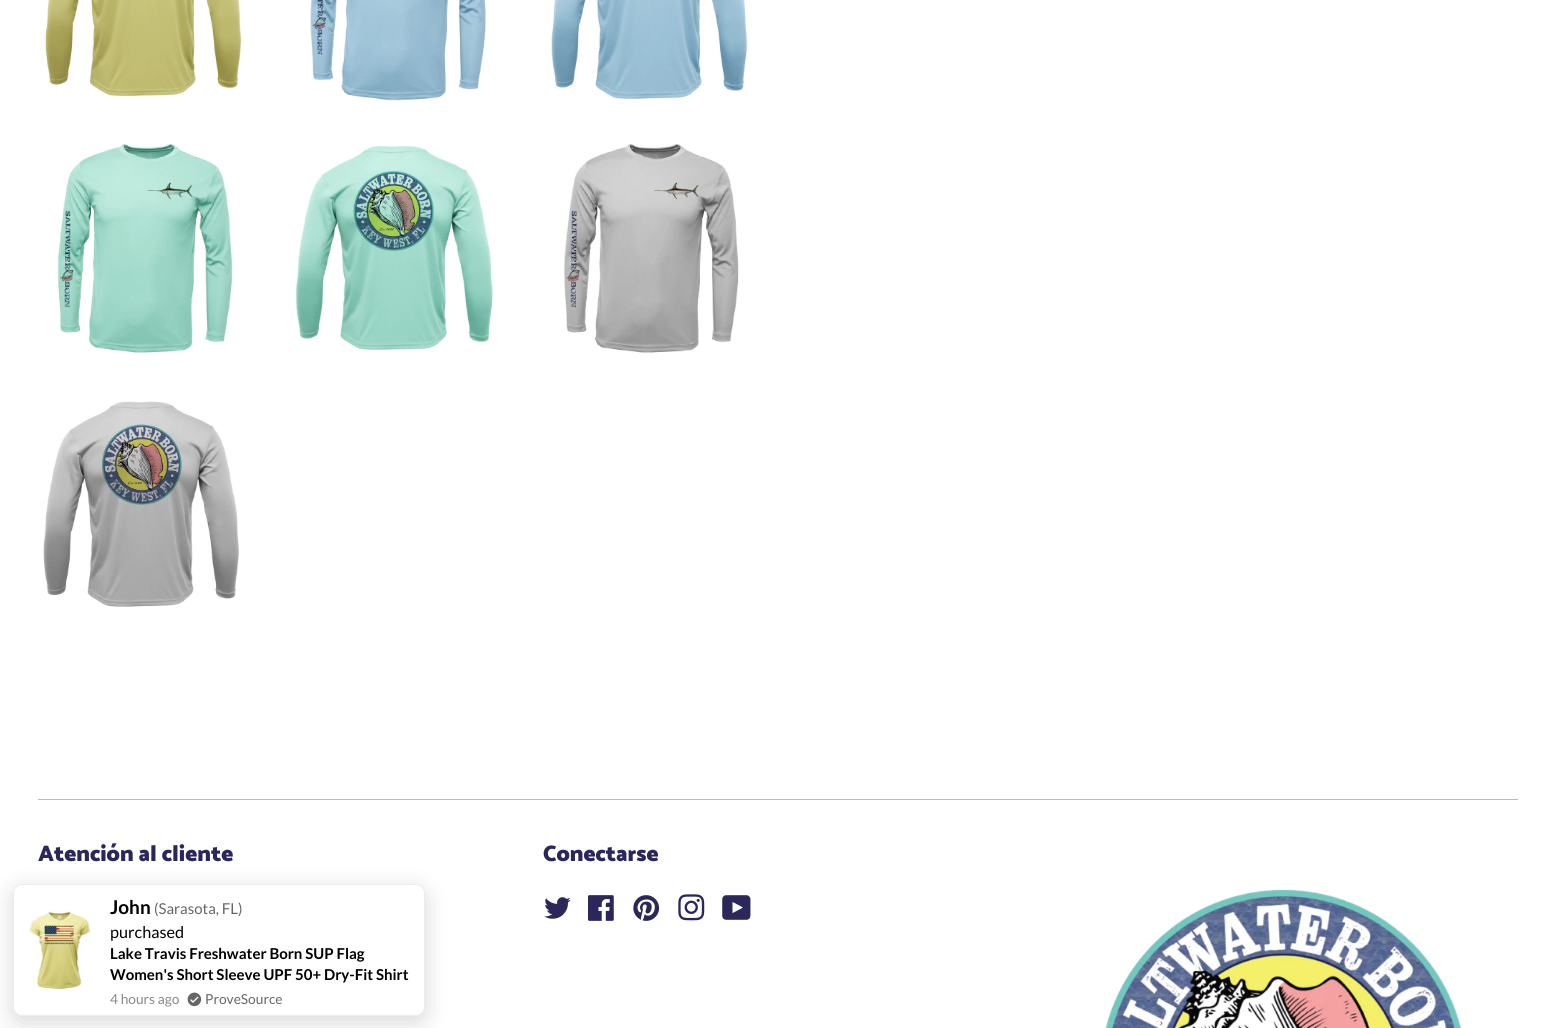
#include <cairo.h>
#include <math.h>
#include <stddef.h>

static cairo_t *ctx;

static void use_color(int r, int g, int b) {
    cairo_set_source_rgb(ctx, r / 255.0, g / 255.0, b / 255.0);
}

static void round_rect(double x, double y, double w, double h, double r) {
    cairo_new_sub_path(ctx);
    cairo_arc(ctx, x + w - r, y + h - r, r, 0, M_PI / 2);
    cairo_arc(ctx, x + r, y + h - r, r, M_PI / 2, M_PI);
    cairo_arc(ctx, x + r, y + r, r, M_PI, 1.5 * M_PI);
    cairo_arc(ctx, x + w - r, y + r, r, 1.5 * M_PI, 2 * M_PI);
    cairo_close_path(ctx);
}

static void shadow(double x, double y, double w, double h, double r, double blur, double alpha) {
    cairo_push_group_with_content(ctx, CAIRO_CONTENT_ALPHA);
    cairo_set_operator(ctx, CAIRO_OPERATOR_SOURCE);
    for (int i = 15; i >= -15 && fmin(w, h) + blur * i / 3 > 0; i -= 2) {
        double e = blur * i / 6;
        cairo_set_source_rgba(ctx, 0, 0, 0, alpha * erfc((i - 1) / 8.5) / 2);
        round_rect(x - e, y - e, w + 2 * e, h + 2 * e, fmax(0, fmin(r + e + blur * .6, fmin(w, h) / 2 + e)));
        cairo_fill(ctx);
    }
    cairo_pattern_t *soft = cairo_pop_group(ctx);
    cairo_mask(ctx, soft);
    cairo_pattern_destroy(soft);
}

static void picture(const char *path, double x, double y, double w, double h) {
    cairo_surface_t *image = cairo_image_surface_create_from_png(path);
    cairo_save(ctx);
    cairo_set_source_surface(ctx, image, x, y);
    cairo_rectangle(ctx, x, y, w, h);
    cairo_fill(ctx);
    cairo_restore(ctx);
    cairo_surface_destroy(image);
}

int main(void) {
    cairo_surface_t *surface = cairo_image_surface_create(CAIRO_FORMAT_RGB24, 1554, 1028);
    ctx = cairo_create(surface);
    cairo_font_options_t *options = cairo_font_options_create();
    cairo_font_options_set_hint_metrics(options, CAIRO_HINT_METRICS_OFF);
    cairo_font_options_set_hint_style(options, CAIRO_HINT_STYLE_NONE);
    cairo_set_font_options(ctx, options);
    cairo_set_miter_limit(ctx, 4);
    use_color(255, 255, 255);
    cairo_paint(ctx);
    picture("img1.png", 45, 0, 197, 96);
    picture("img2.png", 310, 0, 176, 101);
    picture("img3.png", 551, 0, 197, 99);
    picture("img4.png", 57, 143, 176, 210);
    picture("img5.png", 295, 145, 198, 205);
    picture("img6.png", 564, 143, 175, 210);
    picture("img7.png", 43, 401, 196, 206);
    use_color(246, 161, 162);
    cairo_rectangle(ctx, 38, 799, 1480, 1);
    cairo_fill(ctx);
    cairo_select_font_face(ctx, "Catamaran Black", CAIRO_FONT_SLANT_NORMAL, CAIRO_FONT_WEIGHT_NORMAL);
    cairo_set_font_size(ctx, 22.5);
    use_color(43, 39, 90);
    cairo_move_to(ctx, 38, 861);
    cairo_show_text(ctx, "Atención al cliente");
    cairo_move_to(ctx, 543, 861);
    cairo_show_text(ctx, "Conectarse");
    picture("img8.png", 544, 897, 27, 22);
    picture("img9.png", 588, 895, 26, 26);
    picture("img10.png", 633, 895, 27, 26);
    picture("img11.png", 678, 894, 27, 27);
    picture("img12.png", 722, 895, 29, 25);
    picture("img13.png", 1105, 889, 357, 139);
    use_color(0, 0, 0);
    shadow(13, 890, 412, 133, 9, 12.5, 0.15);
    use_color(255, 255, 255);
    round_rect(13.5, 884.5, 411, 131, 8.5);
    cairo_fill_preserve(ctx);
    use_color(236, 236, 236);
    cairo_set_line_width(ctx, 1);
    cairo_stroke(ctx);
    picture("img14.png", 29, 910, 62, 81);
    cairo_select_font_face(ctx, "Lato", CAIRO_FONT_SLANT_NORMAL, CAIRO_FONT_WEIGHT_BOLD);
    cairo_set_font_size(ctx, 19);
    use_color(0, 0, 0);
    cairo_move_to(ctx, 110, 914);
    cairo_show_text(ctx, "John");
    cairo_select_font_face(ctx, "Lato", CAIRO_FONT_SLANT_NORMAL, CAIRO_FONT_WEIGHT_NORMAL);
    cairo_set_font_size(ctx, 15);
    use_color(102, 102, 102);
    cairo_move_to(ctx, 154, 914);
    cairo_show_text(ctx, "(Sarasota, FL)");
    cairo_set_font_size(ctx, 16.25);
    use_color(0, 0, 0);
    cairo_move_to(ctx, 110, 938);
    cairo_show_text(ctx, "purchased");
    cairo_select_font_face(ctx, "Lato", CAIRO_FONT_SLANT_NORMAL, CAIRO_FONT_WEIGHT_BOLD);
    cairo_set_font_size(ctx, 15);
    cairo_move_to(ctx, 110, 959);
    cairo_show_text(ctx, "Lake Travis Freshwater Born SUP Flag");
    cairo_move_to(ctx, 110, 980);
    cairo_show_text(ctx, "Women's Short Sleeve UPF 50+ Dry-Fit Shirt");
    cairo_select_font_face(ctx, "Lato", CAIRO_FONT_SLANT_NORMAL, CAIRO_FONT_WEIGHT_NORMAL);
    cairo_set_font_size(ctx, 13.75);
    use_color(136, 136, 136);
    cairo_move_to(ctx, 110, 1004);
    cairo_show_text(ctx, "4 hours ago");
    picture("img15.png", 187, 992, 15, 15);
    use_color(102, 102, 102);
    cairo_move_to(ctx, 205, 1004);
    cairo_show_text(ctx, "ProveSource");
    cairo_surface_write_to_png(surface, "result.png");
    cairo_font_options_destroy(options);
    cairo_destroy(ctx);
    cairo_surface_destroy(surface);
    return 0;
}
